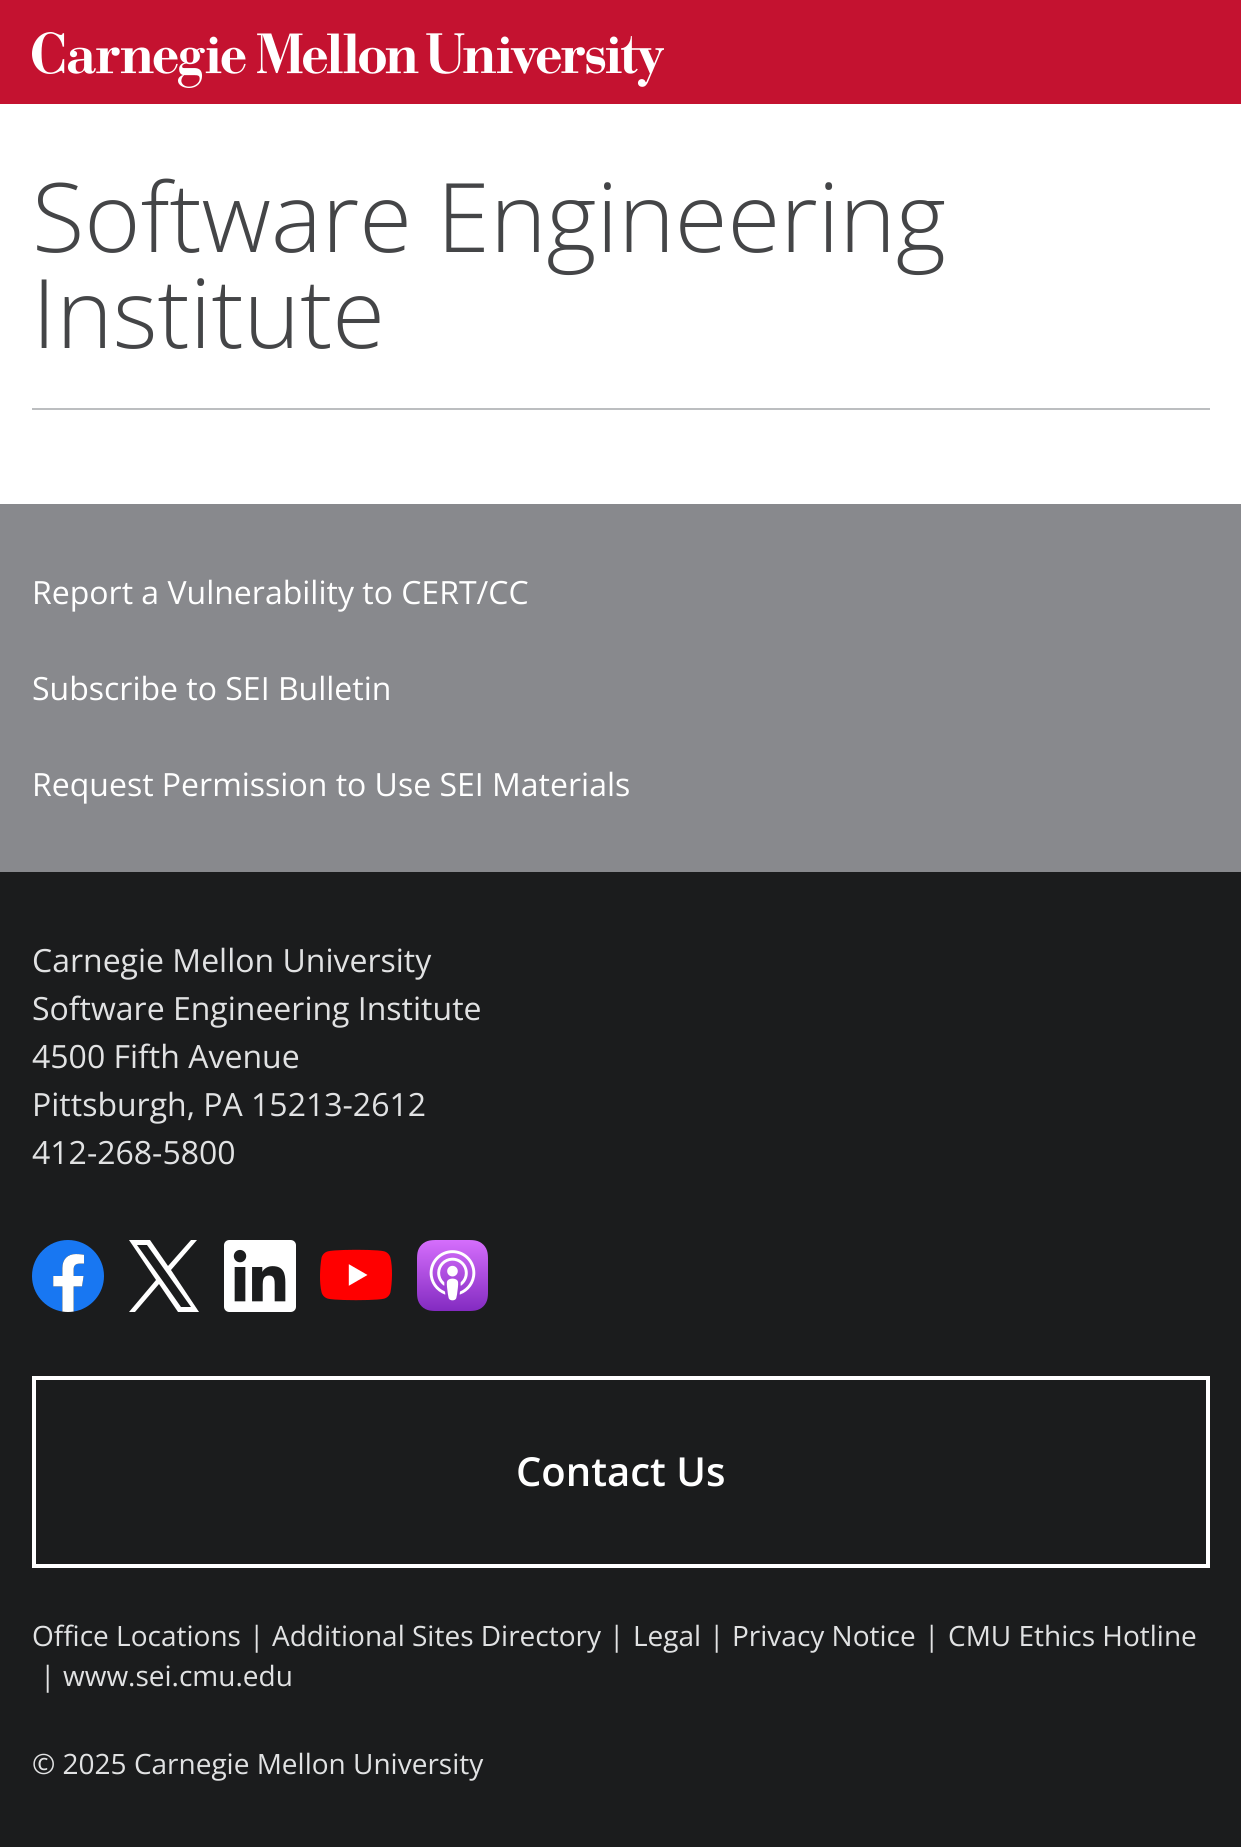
#include <cairo.h>
#include <math.h>
#include <stddef.h>

static cairo_t *ctx;

static void use_color(int r, int g, int b) {
    cairo_set_source_rgb(ctx, r / 255.0, g / 255.0, b / 255.0);
}

static void picture(const char *path, double x, double y, double w, double h) {
    cairo_surface_t *image = cairo_image_surface_create_from_png(path);
    cairo_save(ctx);
    cairo_set_source_surface(ctx, image, x, y);
    cairo_rectangle(ctx, x, y, w, h);
    cairo_fill(ctx);
    cairo_restore(ctx);
    cairo_surface_destroy(image);
}

int main(void) {
    cairo_surface_t *surface = cairo_image_surface_create(CAIRO_FORMAT_RGB24, 1241, 1847);
    ctx = cairo_create(surface);
    cairo_font_options_t *options = cairo_font_options_create();
    cairo_font_options_set_hint_metrics(options, CAIRO_HINT_METRICS_OFF);
    cairo_font_options_set_hint_style(options, CAIRO_HINT_STYLE_NONE);
    cairo_set_font_options(ctx, options);
    cairo_set_miter_limit(ctx, 4);
    use_color(255, 255, 255);
    cairo_paint(ctx);
    use_color(196, 18, 48);
    cairo_rectangle(ctx, 0, 0, 1241, 104);
    cairo_fill(ctx);
    picture("img1.png", 32, 32, 632, 56);
    use_color(188, 190, 192);
    cairo_rectangle(ctx, 32, 408, 1178, 2);
    cairo_fill(ctx);
    cairo_select_font_face(ctx, "Open Sans Light", CAIRO_FONT_SLANT_NORMAL, CAIRO_FONT_WEIGHT_NORMAL);
    cairo_set_font_size(ctx, 96);
    use_color(68, 69, 71);
    cairo_move_to(ctx, 32, 252);
    cairo_show_text(ctx, "Software Engineering");
    cairo_move_to(ctx, 32, 348);
    cairo_show_text(ctx, "Institute");
    use_color(136, 137, 141);
    cairo_rectangle(ctx, 0, 504, 1241, 368);
    cairo_fill(ctx);
    cairo_select_font_face(ctx, "Open Sans", CAIRO_FONT_SLANT_NORMAL, CAIRO_FONT_WEIGHT_NORMAL);
    cairo_set_font_size(ctx, 32);
    use_color(255, 255, 255);
    cairo_move_to(ctx, 32, 604);
    cairo_show_text(ctx, "Report a Vulnerability to CERT/CC");
    cairo_move_to(ctx, 32, 700);
    cairo_show_text(ctx, "Subscribe to SEI Bulletin");
    cairo_move_to(ctx, 32, 796);
    cairo_show_text(ctx, "Request Permission to Use SEI Materials");
    use_color(27, 28, 29);
    cairo_rectangle(ctx, 0, 872, 1241, 975);
    cairo_fill(ctx);
    use_color(225, 226, 227);
    cairo_move_to(ctx, 32, 972);
    cairo_show_text(ctx, "Carnegie Mellon University");
    cairo_move_to(ctx, 32, 1020);
    cairo_show_text(ctx, "Software Engineering Institute");
    cairo_move_to(ctx, 32, 1068);
    cairo_show_text(ctx, "4500 Fifth Avenue");
    cairo_move_to(ctx, 32, 1116);
    cairo_show_text(ctx, "Pittsburgh, PA 15213-2612");
    cairo_move_to(ctx, 32, 1164);
    cairo_show_text(ctx, "412-268-5800");
    picture("img2.png", 32, 1240, 72, 72);
    use_color(255, 255, 255);
    cairo_new_path(ctx);
    cairo_move_to(ctx, 171, 1270);
    cairo_line_to(ctx, 197, 1240);
    cairo_line_to(ctx, 191, 1240);
    cairo_line_to(ctx, 168, 1266);
    cairo_line_to(ctx, 150, 1240);
    cairo_line_to(ctx, 129, 1240);
    cairo_line_to(ctx, 156, 1280);
    cairo_line_to(ctx, 129, 1312);
    cairo_line_to(ctx, 135, 1312);
    cairo_line_to(ctx, 159, 1284);
    cairo_line_to(ctx, 178, 1312);
    cairo_line_to(ctx, 199, 1312);
    cairo_close_path(ctx);
    cairo_move_to(ctx, 162, 1280);
    cairo_line_to(ctx, 137, 1245);
    cairo_line_to(ctx, 147, 1245);
    cairo_line_to(ctx, 191, 1307);
    cairo_line_to(ctx, 181, 1307);
    cairo_close_path(ctx);
    cairo_fill(ctx);
    picture("img3.png", 224, 1240, 72, 72);
    picture("img4.png", 320, 1249, 72, 52);
    picture("img5.png", 417, 1240, 71, 71);
    cairo_rectangle(ctx, 34, 1378, 1174, 188);
    cairo_set_line_width(ctx, 4);
    cairo_stroke(ctx);
    cairo_select_font_face(ctx, "Open Sans SemiBold", CAIRO_FONT_SLANT_NORMAL, CAIRO_FONT_WEIGHT_NORMAL);
    cairo_set_font_size(ctx, 40);
    cairo_move_to(ctx, 516, 1486);
    cairo_show_text(ctx, "Contact Us");
    cairo_select_font_face(ctx, "Open Sans", CAIRO_FONT_SLANT_NORMAL, CAIRO_FONT_WEIGHT_NORMAL);
    cairo_set_font_size(ctx, 28);
    use_color(225, 226, 227);
    cairo_move_to(ctx, 32, 1646);
    cairo_show_text(ctx, "Office Locations");
    cairo_move_to(ctx, 249, 1646);
    cairo_show_text(ctx, "|");
    cairo_move_to(ctx, 272, 1646);
    cairo_show_text(ctx, "Additional Sites Directory");
    cairo_move_to(ctx, 609, 1646);
    cairo_show_text(ctx, "|");
    cairo_move_to(ctx, 633, 1646);
    cairo_show_text(ctx, "Legal");
    cairo_move_to(ctx, 709, 1646);
    cairo_show_text(ctx, "|");
    cairo_move_to(ctx, 732, 1646);
    cairo_show_text(ctx, "Privacy Notice");
    cairo_move_to(ctx, 924, 1646);
    cairo_show_text(ctx, "|");
    cairo_move_to(ctx, 948, 1646);
    cairo_show_text(ctx, "CMU Ethics Hotline");
    cairo_move_to(ctx, 40, 1686);
    cairo_show_text(ctx, "|");
    cairo_move_to(ctx, 63, 1686);
    cairo_show_text(ctx, "www.sei.cmu.edu");
    cairo_move_to(ctx, 32, 1774);
    cairo_show_text(ctx, "© 2025 Carnegie Mellon University");
    cairo_surface_write_to_png(surface, "result.png");
    cairo_font_options_destroy(options);
    cairo_destroy(ctx);
    cairo_surface_destroy(surface);
    return 0;
}
